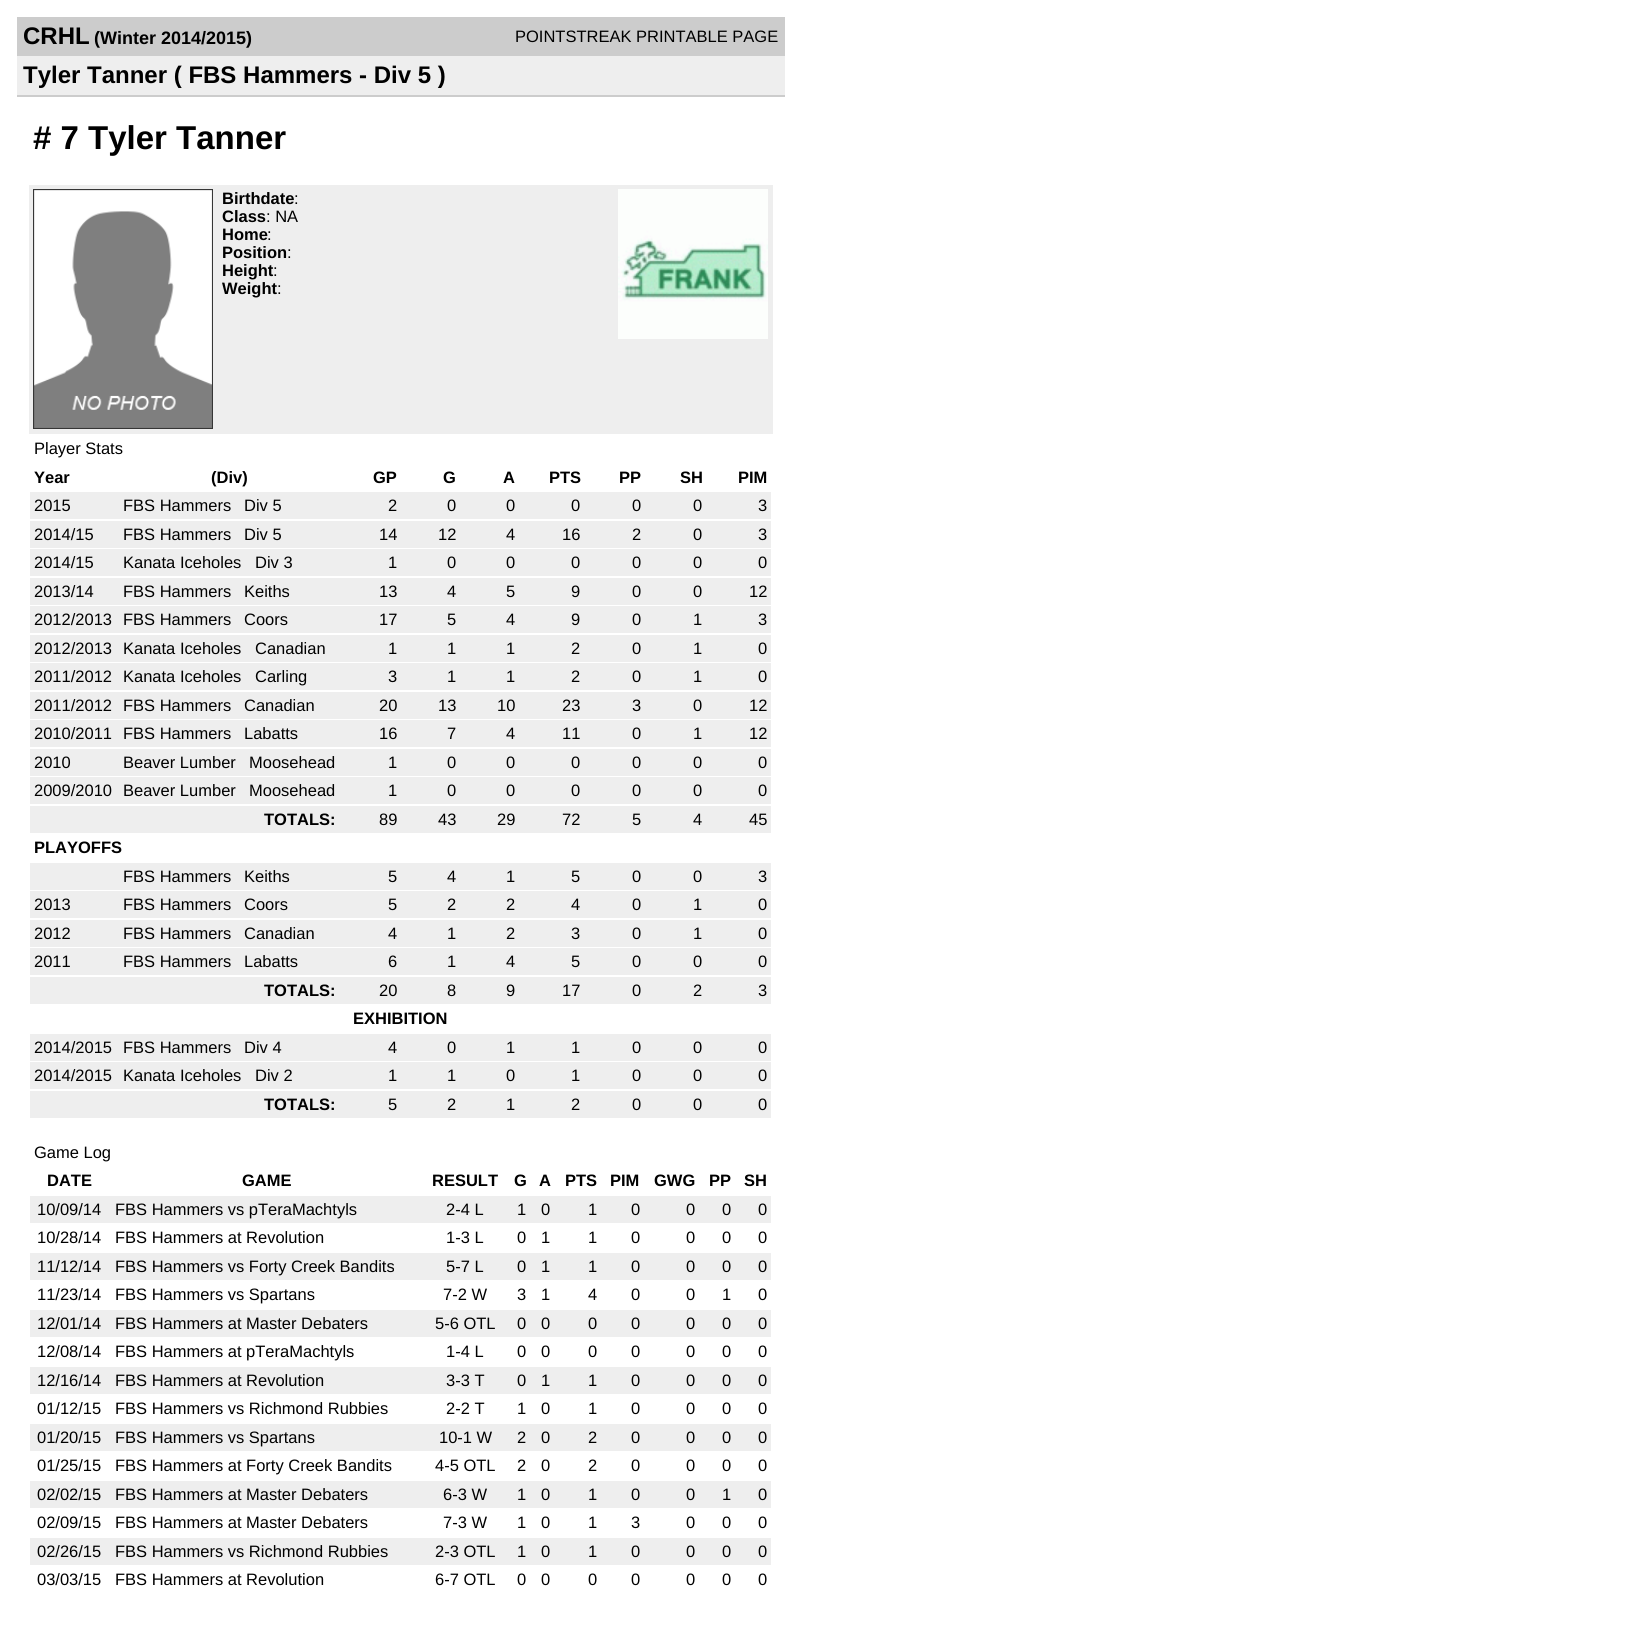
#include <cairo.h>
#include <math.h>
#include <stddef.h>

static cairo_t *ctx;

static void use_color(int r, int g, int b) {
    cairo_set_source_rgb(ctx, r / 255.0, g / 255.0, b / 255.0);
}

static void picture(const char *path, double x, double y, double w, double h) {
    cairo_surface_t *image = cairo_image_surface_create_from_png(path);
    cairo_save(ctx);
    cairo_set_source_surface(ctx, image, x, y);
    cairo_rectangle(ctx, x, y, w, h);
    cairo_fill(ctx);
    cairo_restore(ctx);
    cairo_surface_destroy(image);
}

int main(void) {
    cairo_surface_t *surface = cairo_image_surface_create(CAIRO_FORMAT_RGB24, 1641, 1641);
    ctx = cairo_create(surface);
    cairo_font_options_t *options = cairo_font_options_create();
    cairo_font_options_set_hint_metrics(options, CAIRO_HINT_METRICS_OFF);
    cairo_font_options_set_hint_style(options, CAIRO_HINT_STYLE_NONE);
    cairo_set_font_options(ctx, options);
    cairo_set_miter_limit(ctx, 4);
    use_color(255, 255, 255);
    cairo_paint(ctx);
    use_color(204, 204, 204);
    cairo_rectangle(ctx, 17, 17, 768, 39);
    cairo_fill(ctx);
    cairo_select_font_face(ctx, "Liberation Sans", CAIRO_FONT_SLANT_NORMAL, CAIRO_FONT_WEIGHT_BOLD);
    cairo_set_font_size(ctx, 24);
    use_color(0, 0, 0);
    cairo_move_to(ctx, 23, 44);
    cairo_show_text(ctx, "CRHL");
    cairo_set_font_size(ctx, 18);
    cairo_move_to(ctx, 94, 44);
    cairo_show_text(ctx, "(Winter 2014/2015)");
    cairo_select_font_face(ctx, "Liberation Sans", CAIRO_FONT_SLANT_NORMAL, CAIRO_FONT_WEIGHT_NORMAL);
    cairo_set_font_size(ctx, 16.5);
    cairo_move_to(ctx, 515, 42);
    cairo_show_text(ctx, "POINTSTREAK PRINTABLE PAGE");
    use_color(238, 238, 238);
    cairo_rectangle(ctx, 17, 56, 768, 39);
    cairo_fill(ctx);
    cairo_select_font_face(ctx, "Liberation Sans", CAIRO_FONT_SLANT_NORMAL, CAIRO_FONT_WEIGHT_BOLD);
    cairo_set_font_size(ctx, 24);
    use_color(0, 0, 0);
    cairo_move_to(ctx, 23, 83);
    cairo_show_text(ctx, "Tyler Tanner ( FBS Hammers - Div 5 )");
    use_color(204, 204, 204);
    cairo_rectangle(ctx, 17, 95, 768, 2);
    cairo_fill(ctx);
    cairo_set_font_size(ctx, 33);
    use_color(0, 0, 0);
    cairo_move_to(ctx, 33, 149);
    cairo_show_text(ctx, "# 7 Tyler Tanner");
    use_color(238, 238, 238);
    cairo_rectangle(ctx, 29, 185, 744, 249);
    cairo_fill(ctx);
    picture("img1.png", 33, 189, 180, 240);
    cairo_set_font_size(ctx, 16.5);
    use_color(0, 0, 0);
    cairo_move_to(ctx, 222, 204);
    cairo_show_text(ctx, "Birthdate");
    cairo_select_font_face(ctx, "Liberation Sans", CAIRO_FONT_SLANT_NORMAL, CAIRO_FONT_WEIGHT_NORMAL);
    cairo_move_to(ctx, 294, 204);
    cairo_show_text(ctx, ":");
    cairo_select_font_face(ctx, "Liberation Sans", CAIRO_FONT_SLANT_NORMAL, CAIRO_FONT_WEIGHT_BOLD);
    cairo_move_to(ctx, 222, 222);
    cairo_show_text(ctx, "Class");
    cairo_select_font_face(ctx, "Liberation Sans", CAIRO_FONT_SLANT_NORMAL, CAIRO_FONT_WEIGHT_NORMAL);
    cairo_move_to(ctx, 266, 222);
    cairo_show_text(ctx, ": NA");
    cairo_select_font_face(ctx, "Liberation Sans", CAIRO_FONT_SLANT_NORMAL, CAIRO_FONT_WEIGHT_BOLD);
    cairo_move_to(ctx, 222, 240);
    cairo_show_text(ctx, "Home");
    cairo_select_font_face(ctx, "Liberation Sans", CAIRO_FONT_SLANT_NORMAL, CAIRO_FONT_WEIGHT_NORMAL);
    cairo_move_to(ctx, 267, 240);
    cairo_show_text(ctx, ":");
    cairo_select_font_face(ctx, "Liberation Sans", CAIRO_FONT_SLANT_NORMAL, CAIRO_FONT_WEIGHT_BOLD);
    cairo_move_to(ctx, 222, 258);
    cairo_show_text(ctx, "Position");
    cairo_select_font_face(ctx, "Liberation Sans", CAIRO_FONT_SLANT_NORMAL, CAIRO_FONT_WEIGHT_NORMAL);
    cairo_move_to(ctx, 287, 258);
    cairo_show_text(ctx, ":");
    cairo_select_font_face(ctx, "Liberation Sans", CAIRO_FONT_SLANT_NORMAL, CAIRO_FONT_WEIGHT_BOLD);
    cairo_move_to(ctx, 222, 276);
    cairo_show_text(ctx, "Height");
    cairo_select_font_face(ctx, "Liberation Sans", CAIRO_FONT_SLANT_NORMAL, CAIRO_FONT_WEIGHT_NORMAL);
    cairo_move_to(ctx, 273, 276);
    cairo_show_text(ctx, ":");
    cairo_select_font_face(ctx, "Liberation Sans", CAIRO_FONT_SLANT_NORMAL, CAIRO_FONT_WEIGHT_BOLD);
    cairo_move_to(ctx, 222, 294);
    cairo_show_text(ctx, "Weight");
    cairo_select_font_face(ctx, "Liberation Sans", CAIRO_FONT_SLANT_NORMAL, CAIRO_FONT_WEIGHT_NORMAL);
    cairo_move_to(ctx, 277, 294);
    cairo_show_text(ctx, ":");
    picture("img2.png", 618, 189, 150, 150);
    cairo_move_to(ctx, 34, 454);
    cairo_show_text(ctx, "Player Stats");
    cairo_select_font_face(ctx, "Liberation Sans", CAIRO_FONT_SLANT_NORMAL, CAIRO_FONT_WEIGHT_BOLD);
    cairo_move_to(ctx, 34, 483);
    cairo_show_text(ctx, "Year");
    cairo_move_to(ctx, 211, 483);
    cairo_show_text(ctx, "(Div)");
    cairo_move_to(ctx, 373, 483);
    cairo_show_text(ctx, "GP");
    cairo_move_to(ctx, 443, 483);
    cairo_show_text(ctx, "G");
    cairo_move_to(ctx, 503, 483);
    cairo_show_text(ctx, "A");
    cairo_move_to(ctx, 549, 483);
    cairo_show_text(ctx, "PTS");
    cairo_move_to(ctx, 619, 483);
    cairo_show_text(ctx, "PP");
    cairo_move_to(ctx, 680, 483);
    cairo_show_text(ctx, "SH");
    cairo_move_to(ctx, 738, 483);
    cairo_show_text(ctx, "PIM");
    use_color(238, 238, 238);
    cairo_rectangle(ctx, 30, 492, 741, 27);
    cairo_fill(ctx);
    cairo_select_font_face(ctx, "Liberation Sans", CAIRO_FONT_SLANT_NORMAL, CAIRO_FONT_WEIGHT_NORMAL);
    use_color(0, 0, 0);
    cairo_move_to(ctx, 34, 511);
    cairo_show_text(ctx, "2015");
    cairo_move_to(ctx, 123, 511);
    cairo_show_text(ctx, "FBS Hammers");
    cairo_move_to(ctx, 244, 511);
    cairo_show_text(ctx, "Div 5");
    cairo_move_to(ctx, 388, 511);
    cairo_show_text(ctx, "2");
    cairo_move_to(ctx, 447, 511);
    cairo_show_text(ctx, "0");
    cairo_move_to(ctx, 506, 511);
    cairo_show_text(ctx, "0");
    cairo_move_to(ctx, 571, 511);
    cairo_show_text(ctx, "0");
    cairo_move_to(ctx, 632, 511);
    cairo_show_text(ctx, "0");
    cairo_move_to(ctx, 693, 511);
    cairo_show_text(ctx, "0");
    cairo_move_to(ctx, 758, 511);
    cairo_show_text(ctx, "3");
    use_color(238, 238, 238);
    cairo_rectangle(ctx, 30, 521, 741, 27);
    cairo_fill(ctx);
    use_color(0, 0, 0);
    cairo_move_to(ctx, 34, 540);
    cairo_show_text(ctx, "2014/15");
    cairo_move_to(ctx, 123, 540);
    cairo_show_text(ctx, "FBS Hammers");
    cairo_move_to(ctx, 244, 540);
    cairo_show_text(ctx, "Div 5");
    cairo_move_to(ctx, 379, 540);
    cairo_show_text(ctx, "14");
    cairo_move_to(ctx, 438, 540);
    cairo_show_text(ctx, "12");
    cairo_move_to(ctx, 506, 540);
    cairo_show_text(ctx, "4");
    cairo_move_to(ctx, 562, 540);
    cairo_show_text(ctx, "16");
    cairo_move_to(ctx, 632, 540);
    cairo_show_text(ctx, "2");
    cairo_move_to(ctx, 693, 540);
    cairo_show_text(ctx, "0");
    cairo_move_to(ctx, 758, 540);
    cairo_show_text(ctx, "3");
    use_color(238, 238, 238);
    cairo_rectangle(ctx, 30, 549, 741, 27);
    cairo_fill(ctx);
    use_color(0, 0, 0);
    cairo_move_to(ctx, 34, 568);
    cairo_show_text(ctx, "2014/15");
    cairo_move_to(ctx, 123, 568);
    cairo_show_text(ctx, "Kanata Iceholes");
    cairo_move_to(ctx, 255, 568);
    cairo_show_text(ctx, "Div 3");
    cairo_move_to(ctx, 388, 568);
    cairo_show_text(ctx, "1");
    cairo_move_to(ctx, 447, 568);
    cairo_show_text(ctx, "0");
    cairo_move_to(ctx, 506, 568);
    cairo_show_text(ctx, "0");
    cairo_move_to(ctx, 571, 568);
    cairo_show_text(ctx, "0");
    cairo_move_to(ctx, 632, 568);
    cairo_show_text(ctx, "0");
    cairo_move_to(ctx, 693, 568);
    cairo_show_text(ctx, "0");
    cairo_move_to(ctx, 758, 568);
    cairo_show_text(ctx, "0");
    use_color(238, 238, 238);
    cairo_rectangle(ctx, 30, 578, 741, 27);
    cairo_fill(ctx);
    use_color(0, 0, 0);
    cairo_move_to(ctx, 34, 597);
    cairo_show_text(ctx, "2013/14");
    cairo_move_to(ctx, 123, 597);
    cairo_show_text(ctx, "FBS Hammers");
    cairo_move_to(ctx, 244, 597);
    cairo_show_text(ctx, "Keiths");
    cairo_move_to(ctx, 379, 597);
    cairo_show_text(ctx, "13");
    cairo_move_to(ctx, 447, 597);
    cairo_show_text(ctx, "4");
    cairo_move_to(ctx, 506, 597);
    cairo_show_text(ctx, "5");
    cairo_move_to(ctx, 571, 597);
    cairo_show_text(ctx, "9");
    cairo_move_to(ctx, 632, 597);
    cairo_show_text(ctx, "0");
    cairo_move_to(ctx, 693, 597);
    cairo_show_text(ctx, "0");
    cairo_move_to(ctx, 749, 597);
    cairo_show_text(ctx, "12");
    use_color(238, 238, 238);
    cairo_rectangle(ctx, 30, 606, 741, 27);
    cairo_fill(ctx);
    use_color(0, 0, 0);
    cairo_move_to(ctx, 34, 625);
    cairo_show_text(ctx, "2012/2013");
    cairo_move_to(ctx, 123, 625);
    cairo_show_text(ctx, "FBS Hammers");
    cairo_move_to(ctx, 244, 625);
    cairo_show_text(ctx, "Coors");
    cairo_move_to(ctx, 379, 625);
    cairo_show_text(ctx, "17");
    cairo_move_to(ctx, 447, 625);
    cairo_show_text(ctx, "5");
    cairo_move_to(ctx, 506, 625);
    cairo_show_text(ctx, "4");
    cairo_move_to(ctx, 571, 625);
    cairo_show_text(ctx, "9");
    cairo_move_to(ctx, 632, 625);
    cairo_show_text(ctx, "0");
    cairo_move_to(ctx, 693, 625);
    cairo_show_text(ctx, "1");
    cairo_move_to(ctx, 758, 625);
    cairo_show_text(ctx, "3");
    use_color(238, 238, 238);
    cairo_rectangle(ctx, 30, 635, 741, 27);
    cairo_fill(ctx);
    use_color(0, 0, 0);
    cairo_move_to(ctx, 34, 654);
    cairo_show_text(ctx, "2012/2013");
    cairo_move_to(ctx, 123, 654);
    cairo_show_text(ctx, "Kanata Iceholes");
    cairo_move_to(ctx, 255, 654);
    cairo_show_text(ctx, "Canadian");
    cairo_move_to(ctx, 388, 654);
    cairo_show_text(ctx, "1");
    cairo_move_to(ctx, 447, 654);
    cairo_show_text(ctx, "1");
    cairo_move_to(ctx, 506, 654);
    cairo_show_text(ctx, "1");
    cairo_move_to(ctx, 571, 654);
    cairo_show_text(ctx, "2");
    cairo_move_to(ctx, 632, 654);
    cairo_show_text(ctx, "0");
    cairo_move_to(ctx, 693, 654);
    cairo_show_text(ctx, "1");
    cairo_move_to(ctx, 758, 654);
    cairo_show_text(ctx, "0");
    use_color(238, 238, 238);
    cairo_rectangle(ctx, 30, 663, 741, 27);
    cairo_fill(ctx);
    use_color(0, 0, 0);
    cairo_move_to(ctx, 34, 682);
    cairo_show_text(ctx, "2011/2012");
    cairo_move_to(ctx, 123, 682);
    cairo_show_text(ctx, "Kanata Iceholes");
    cairo_move_to(ctx, 255, 682);
    cairo_show_text(ctx, "Carling");
    cairo_move_to(ctx, 388, 682);
    cairo_show_text(ctx, "3");
    cairo_move_to(ctx, 447, 682);
    cairo_show_text(ctx, "1");
    cairo_move_to(ctx, 506, 682);
    cairo_show_text(ctx, "1");
    cairo_move_to(ctx, 571, 682);
    cairo_show_text(ctx, "2");
    cairo_move_to(ctx, 632, 682);
    cairo_show_text(ctx, "0");
    cairo_move_to(ctx, 693, 682);
    cairo_show_text(ctx, "1");
    cairo_move_to(ctx, 758, 682);
    cairo_show_text(ctx, "0");
    use_color(238, 238, 238);
    cairo_rectangle(ctx, 30, 692, 741, 27);
    cairo_fill(ctx);
    use_color(0, 0, 0);
    cairo_move_to(ctx, 34, 711);
    cairo_show_text(ctx, "2011/2012");
    cairo_move_to(ctx, 123, 711);
    cairo_show_text(ctx, "FBS Hammers");
    cairo_move_to(ctx, 244, 711);
    cairo_show_text(ctx, "Canadian");
    cairo_move_to(ctx, 379, 711);
    cairo_show_text(ctx, "20");
    cairo_move_to(ctx, 438, 711);
    cairo_show_text(ctx, "13");
    cairo_move_to(ctx, 497, 711);
    cairo_show_text(ctx, "10");
    cairo_move_to(ctx, 562, 711);
    cairo_show_text(ctx, "23");
    cairo_move_to(ctx, 632, 711);
    cairo_show_text(ctx, "3");
    cairo_move_to(ctx, 693, 711);
    cairo_show_text(ctx, "0");
    cairo_move_to(ctx, 749, 711);
    cairo_show_text(ctx, "12");
    use_color(238, 238, 238);
    cairo_rectangle(ctx, 30, 720, 741, 27);
    cairo_fill(ctx);
    use_color(0, 0, 0);
    cairo_move_to(ctx, 34, 739);
    cairo_show_text(ctx, "2010/2011");
    cairo_move_to(ctx, 123, 739);
    cairo_show_text(ctx, "FBS Hammers");
    cairo_move_to(ctx, 244, 739);
    cairo_show_text(ctx, "Labatts");
    cairo_move_to(ctx, 379, 739);
    cairo_show_text(ctx, "16");
    cairo_move_to(ctx, 447, 739);
    cairo_show_text(ctx, "7");
    cairo_move_to(ctx, 506, 739);
    cairo_show_text(ctx, "4");
    cairo_move_to(ctx, 562, 739);
    cairo_show_text(ctx, "11");
    cairo_move_to(ctx, 632, 739);
    cairo_show_text(ctx, "0");
    cairo_move_to(ctx, 693, 739);
    cairo_show_text(ctx, "1");
    cairo_move_to(ctx, 749, 739);
    cairo_show_text(ctx, "12");
    use_color(238, 238, 238);
    cairo_rectangle(ctx, 30, 749, 741, 27);
    cairo_fill(ctx);
    use_color(0, 0, 0);
    cairo_move_to(ctx, 34, 768);
    cairo_show_text(ctx, "2010");
    cairo_move_to(ctx, 123, 768);
    cairo_show_text(ctx, "Beaver Lumber");
    cairo_move_to(ctx, 249, 768);
    cairo_show_text(ctx, "Moosehead");
    cairo_move_to(ctx, 388, 768);
    cairo_show_text(ctx, "1");
    cairo_move_to(ctx, 447, 768);
    cairo_show_text(ctx, "0");
    cairo_move_to(ctx, 506, 768);
    cairo_show_text(ctx, "0");
    cairo_move_to(ctx, 571, 768);
    cairo_show_text(ctx, "0");
    cairo_move_to(ctx, 632, 768);
    cairo_show_text(ctx, "0");
    cairo_move_to(ctx, 693, 768);
    cairo_show_text(ctx, "0");
    cairo_move_to(ctx, 758, 768);
    cairo_show_text(ctx, "0");
    use_color(238, 238, 238);
    cairo_rectangle(ctx, 30, 777, 741, 27);
    cairo_fill(ctx);
    use_color(0, 0, 0);
    cairo_move_to(ctx, 34, 796);
    cairo_show_text(ctx, "2009/2010");
    cairo_move_to(ctx, 123, 796);
    cairo_show_text(ctx, "Beaver Lumber");
    cairo_move_to(ctx, 249, 796);
    cairo_show_text(ctx, "Moosehead");
    cairo_move_to(ctx, 388, 796);
    cairo_show_text(ctx, "1");
    cairo_move_to(ctx, 447, 796);
    cairo_show_text(ctx, "0");
    cairo_move_to(ctx, 506, 796);
    cairo_show_text(ctx, "0");
    cairo_move_to(ctx, 571, 796);
    cairo_show_text(ctx, "0");
    cairo_move_to(ctx, 632, 796);
    cairo_show_text(ctx, "0");
    cairo_move_to(ctx, 693, 796);
    cairo_show_text(ctx, "0");
    cairo_move_to(ctx, 758, 796);
    cairo_show_text(ctx, "0");
    use_color(238, 238, 238);
    cairo_rectangle(ctx, 30, 806, 741, 27);
    cairo_fill(ctx);
    cairo_select_font_face(ctx, "Liberation Sans", CAIRO_FONT_SLANT_NORMAL, CAIRO_FONT_WEIGHT_BOLD);
    use_color(0, 0, 0);
    cairo_move_to(ctx, 264, 825);
    cairo_show_text(ctx, "TOTALS:");
    cairo_select_font_face(ctx, "Liberation Sans", CAIRO_FONT_SLANT_NORMAL, CAIRO_FONT_WEIGHT_NORMAL);
    cairo_move_to(ctx, 379, 825);
    cairo_show_text(ctx, "89");
    cairo_move_to(ctx, 438, 825);
    cairo_show_text(ctx, "43");
    cairo_move_to(ctx, 497, 825);
    cairo_show_text(ctx, "29");
    cairo_move_to(ctx, 562, 825);
    cairo_show_text(ctx, "72");
    cairo_move_to(ctx, 632, 825);
    cairo_show_text(ctx, "5");
    cairo_move_to(ctx, 693, 825);
    cairo_show_text(ctx, "4");
    cairo_move_to(ctx, 749, 825);
    cairo_show_text(ctx, "45");
    cairo_select_font_face(ctx, "Liberation Sans", CAIRO_FONT_SLANT_NORMAL, CAIRO_FONT_WEIGHT_BOLD);
    cairo_move_to(ctx, 34, 853);
    cairo_show_text(ctx, "PLAYOFFS");
    use_color(238, 238, 238);
    cairo_rectangle(ctx, 30, 863, 741, 27);
    cairo_fill(ctx);
    cairo_select_font_face(ctx, "Liberation Sans", CAIRO_FONT_SLANT_NORMAL, CAIRO_FONT_WEIGHT_NORMAL);
    use_color(0, 0, 0);
    cairo_move_to(ctx, 123, 882);
    cairo_show_text(ctx, "FBS Hammers");
    cairo_move_to(ctx, 244, 882);
    cairo_show_text(ctx, "Keiths");
    cairo_move_to(ctx, 388, 882);
    cairo_show_text(ctx, "5");
    cairo_move_to(ctx, 447, 882);
    cairo_show_text(ctx, "4");
    cairo_move_to(ctx, 506, 882);
    cairo_show_text(ctx, "1");
    cairo_move_to(ctx, 571, 882);
    cairo_show_text(ctx, "5");
    cairo_move_to(ctx, 632, 882);
    cairo_show_text(ctx, "0");
    cairo_move_to(ctx, 693, 882);
    cairo_show_text(ctx, "0");
    cairo_move_to(ctx, 758, 882);
    cairo_show_text(ctx, "3");
    use_color(238, 238, 238);
    cairo_rectangle(ctx, 30, 891, 741, 27);
    cairo_fill(ctx);
    use_color(0, 0, 0);
    cairo_move_to(ctx, 34, 910);
    cairo_show_text(ctx, "2013");
    cairo_move_to(ctx, 123, 910);
    cairo_show_text(ctx, "FBS Hammers");
    cairo_move_to(ctx, 244, 910);
    cairo_show_text(ctx, "Coors");
    cairo_move_to(ctx, 388, 910);
    cairo_show_text(ctx, "5");
    cairo_move_to(ctx, 447, 910);
    cairo_show_text(ctx, "2");
    cairo_move_to(ctx, 506, 910);
    cairo_show_text(ctx, "2");
    cairo_move_to(ctx, 571, 910);
    cairo_show_text(ctx, "4");
    cairo_move_to(ctx, 632, 910);
    cairo_show_text(ctx, "0");
    cairo_move_to(ctx, 693, 910);
    cairo_show_text(ctx, "1");
    cairo_move_to(ctx, 758, 910);
    cairo_show_text(ctx, "0");
    use_color(238, 238, 238);
    cairo_rectangle(ctx, 30, 920, 741, 27);
    cairo_fill(ctx);
    use_color(0, 0, 0);
    cairo_move_to(ctx, 34, 939);
    cairo_show_text(ctx, "2012");
    cairo_move_to(ctx, 123, 939);
    cairo_show_text(ctx, "FBS Hammers");
    cairo_move_to(ctx, 244, 939);
    cairo_show_text(ctx, "Canadian");
    cairo_move_to(ctx, 388, 939);
    cairo_show_text(ctx, "4");
    cairo_move_to(ctx, 447, 939);
    cairo_show_text(ctx, "1");
    cairo_move_to(ctx, 506, 939);
    cairo_show_text(ctx, "2");
    cairo_move_to(ctx, 571, 939);
    cairo_show_text(ctx, "3");
    cairo_move_to(ctx, 632, 939);
    cairo_show_text(ctx, "0");
    cairo_move_to(ctx, 693, 939);
    cairo_show_text(ctx, "1");
    cairo_move_to(ctx, 758, 939);
    cairo_show_text(ctx, "0");
    use_color(238, 238, 238);
    cairo_rectangle(ctx, 30, 948, 741, 27);
    cairo_fill(ctx);
    use_color(0, 0, 0);
    cairo_move_to(ctx, 34, 967);
    cairo_show_text(ctx, "2011");
    cairo_move_to(ctx, 123, 967);
    cairo_show_text(ctx, "FBS Hammers");
    cairo_move_to(ctx, 244, 967);
    cairo_show_text(ctx, "Labatts");
    cairo_move_to(ctx, 388, 967);
    cairo_show_text(ctx, "6");
    cairo_move_to(ctx, 447, 967);
    cairo_show_text(ctx, "1");
    cairo_move_to(ctx, 506, 967);
    cairo_show_text(ctx, "4");
    cairo_move_to(ctx, 571, 967);
    cairo_show_text(ctx, "5");
    cairo_move_to(ctx, 632, 967);
    cairo_show_text(ctx, "0");
    cairo_move_to(ctx, 693, 967);
    cairo_show_text(ctx, "0");
    cairo_move_to(ctx, 758, 967);
    cairo_show_text(ctx, "0");
    use_color(238, 238, 238);
    cairo_rectangle(ctx, 30, 977, 741, 27);
    cairo_fill(ctx);
    cairo_select_font_face(ctx, "Liberation Sans", CAIRO_FONT_SLANT_NORMAL, CAIRO_FONT_WEIGHT_BOLD);
    use_color(0, 0, 0);
    cairo_move_to(ctx, 264, 996);
    cairo_show_text(ctx, "TOTALS:");
    cairo_select_font_face(ctx, "Liberation Sans", CAIRO_FONT_SLANT_NORMAL, CAIRO_FONT_WEIGHT_NORMAL);
    cairo_move_to(ctx, 379, 996);
    cairo_show_text(ctx, "20");
    cairo_move_to(ctx, 447, 996);
    cairo_show_text(ctx, "8");
    cairo_move_to(ctx, 506, 996);
    cairo_show_text(ctx, "9");
    cairo_move_to(ctx, 562, 996);
    cairo_show_text(ctx, "17");
    cairo_move_to(ctx, 632, 996);
    cairo_show_text(ctx, "0");
    cairo_move_to(ctx, 693, 996);
    cairo_show_text(ctx, "2");
    cairo_move_to(ctx, 758, 996);
    cairo_show_text(ctx, "3");
    cairo_select_font_face(ctx, "Liberation Sans", CAIRO_FONT_SLANT_NORMAL, CAIRO_FONT_WEIGHT_BOLD);
    cairo_move_to(ctx, 353, 1024);
    cairo_show_text(ctx, "EXHIBITION");
    use_color(238, 238, 238);
    cairo_rectangle(ctx, 30, 1034, 741, 27);
    cairo_fill(ctx);
    cairo_select_font_face(ctx, "Liberation Sans", CAIRO_FONT_SLANT_NORMAL, CAIRO_FONT_WEIGHT_NORMAL);
    use_color(0, 0, 0);
    cairo_move_to(ctx, 34, 1053);
    cairo_show_text(ctx, "2014/2015");
    cairo_move_to(ctx, 123, 1053);
    cairo_show_text(ctx, "FBS Hammers");
    cairo_move_to(ctx, 244, 1053);
    cairo_show_text(ctx, "Div 4");
    cairo_move_to(ctx, 388, 1053);
    cairo_show_text(ctx, "4");
    cairo_move_to(ctx, 447, 1053);
    cairo_show_text(ctx, "0");
    cairo_move_to(ctx, 506, 1053);
    cairo_show_text(ctx, "1");
    cairo_move_to(ctx, 571, 1053);
    cairo_show_text(ctx, "1");
    cairo_move_to(ctx, 632, 1053);
    cairo_show_text(ctx, "0");
    cairo_move_to(ctx, 693, 1053);
    cairo_show_text(ctx, "0");
    cairo_move_to(ctx, 758, 1053);
    cairo_show_text(ctx, "0");
    use_color(238, 238, 238);
    cairo_rectangle(ctx, 30, 1062, 741, 27);
    cairo_fill(ctx);
    use_color(0, 0, 0);
    cairo_move_to(ctx, 34, 1081);
    cairo_show_text(ctx, "2014/2015");
    cairo_move_to(ctx, 123, 1081);
    cairo_show_text(ctx, "Kanata Iceholes");
    cairo_move_to(ctx, 255, 1081);
    cairo_show_text(ctx, "Div 2");
    cairo_move_to(ctx, 388, 1081);
    cairo_show_text(ctx, "1");
    cairo_move_to(ctx, 447, 1081);
    cairo_show_text(ctx, "1");
    cairo_move_to(ctx, 506, 1081);
    cairo_show_text(ctx, "0");
    cairo_move_to(ctx, 571, 1081);
    cairo_show_text(ctx, "1");
    cairo_move_to(ctx, 632, 1081);
    cairo_show_text(ctx, "0");
    cairo_move_to(ctx, 693, 1081);
    cairo_show_text(ctx, "0");
    cairo_move_to(ctx, 758, 1081);
    cairo_show_text(ctx, "0");
    use_color(238, 238, 238);
    cairo_rectangle(ctx, 30, 1091, 741, 27);
    cairo_fill(ctx);
    cairo_select_font_face(ctx, "Liberation Sans", CAIRO_FONT_SLANT_NORMAL, CAIRO_FONT_WEIGHT_BOLD);
    use_color(0, 0, 0);
    cairo_move_to(ctx, 264, 1110);
    cairo_show_text(ctx, "TOTALS:");
    cairo_select_font_face(ctx, "Liberation Sans", CAIRO_FONT_SLANT_NORMAL, CAIRO_FONT_WEIGHT_NORMAL);
    cairo_move_to(ctx, 388, 1110);
    cairo_show_text(ctx, "5");
    cairo_move_to(ctx, 447, 1110);
    cairo_show_text(ctx, "2");
    cairo_move_to(ctx, 506, 1110);
    cairo_show_text(ctx, "1");
    cairo_move_to(ctx, 571, 1110);
    cairo_show_text(ctx, "2");
    cairo_move_to(ctx, 632, 1110);
    cairo_show_text(ctx, "0");
    cairo_move_to(ctx, 693, 1110);
    cairo_show_text(ctx, "0");
    cairo_move_to(ctx, 758, 1110);
    cairo_show_text(ctx, "0");
    cairo_move_to(ctx, 34, 1158);
    cairo_show_text(ctx, "Game Log");
    cairo_select_font_face(ctx, "Liberation Sans", CAIRO_FONT_SLANT_NORMAL, CAIRO_FONT_WEIGHT_BOLD);
    cairo_move_to(ctx, 47, 1186);
    cairo_show_text(ctx, "DATE");
    cairo_move_to(ctx, 242, 1186);
    cairo_show_text(ctx, "GAME");
    cairo_move_to(ctx, 432, 1186);
    cairo_show_text(ctx, "RESULT");
    cairo_move_to(ctx, 514, 1186);
    cairo_show_text(ctx, "G");
    cairo_move_to(ctx, 539, 1186);
    cairo_show_text(ctx, "A");
    cairo_move_to(ctx, 565, 1186);
    cairo_show_text(ctx, "PTS");
    cairo_move_to(ctx, 610, 1186);
    cairo_show_text(ctx, "PIM");
    cairo_move_to(ctx, 654, 1186);
    cairo_show_text(ctx, "GWG");
    cairo_move_to(ctx, 709, 1186);
    cairo_show_text(ctx, "PP");
    cairo_move_to(ctx, 744, 1186);
    cairo_show_text(ctx, "SH");
    use_color(238, 238, 238);
    cairo_rectangle(ctx, 30, 1196, 741, 27);
    cairo_fill(ctx);
    cairo_select_font_face(ctx, "Liberation Sans", CAIRO_FONT_SLANT_NORMAL, CAIRO_FONT_WEIGHT_NORMAL);
    use_color(0, 0, 0);
    cairo_move_to(ctx, 37, 1215);
    cairo_show_text(ctx, "10/09/14");
    cairo_move_to(ctx, 115, 1215);
    cairo_show_text(ctx, "FBS Hammers vs pTeraMachtyls");
    cairo_move_to(ctx, 446, 1215);
    cairo_show_text(ctx, "2-4 L");
    cairo_move_to(ctx, 517, 1215);
    cairo_show_text(ctx, "1");
    cairo_move_to(ctx, 541, 1215);
    cairo_show_text(ctx, "0");
    cairo_move_to(ctx, 588, 1215);
    cairo_show_text(ctx, "1");
    cairo_move_to(ctx, 631, 1215);
    cairo_show_text(ctx, "0");
    cairo_move_to(ctx, 686, 1215);
    cairo_show_text(ctx, "0");
    cairo_move_to(ctx, 722, 1215);
    cairo_show_text(ctx, "0");
    cairo_move_to(ctx, 758, 1215);
    cairo_show_text(ctx, "0");
    cairo_move_to(ctx, 37, 1243);
    cairo_show_text(ctx, "10/28/14");
    cairo_move_to(ctx, 115, 1243);
    cairo_show_text(ctx, "FBS Hammers at Revolution");
    cairo_move_to(ctx, 446, 1243);
    cairo_show_text(ctx, "1-3 L");
    cairo_move_to(ctx, 517, 1243);
    cairo_show_text(ctx, "0");
    cairo_move_to(ctx, 541, 1243);
    cairo_show_text(ctx, "1");
    cairo_move_to(ctx, 588, 1243);
    cairo_show_text(ctx, "1");
    cairo_move_to(ctx, 631, 1243);
    cairo_show_text(ctx, "0");
    cairo_move_to(ctx, 686, 1243);
    cairo_show_text(ctx, "0");
    cairo_move_to(ctx, 722, 1243);
    cairo_show_text(ctx, "0");
    cairo_move_to(ctx, 758, 1243);
    cairo_show_text(ctx, "0");
    use_color(238, 238, 238);
    cairo_rectangle(ctx, 30, 1253, 741, 27);
    cairo_fill(ctx);
    use_color(0, 0, 0);
    cairo_move_to(ctx, 37, 1272);
    cairo_show_text(ctx, "11/12/14");
    cairo_move_to(ctx, 115, 1272);
    cairo_show_text(ctx, "FBS Hammers vs Forty Creek Bandits");
    cairo_move_to(ctx, 446, 1272);
    cairo_show_text(ctx, "5-7 L");
    cairo_move_to(ctx, 517, 1272);
    cairo_show_text(ctx, "0");
    cairo_move_to(ctx, 541, 1272);
    cairo_show_text(ctx, "1");
    cairo_move_to(ctx, 588, 1272);
    cairo_show_text(ctx, "1");
    cairo_move_to(ctx, 631, 1272);
    cairo_show_text(ctx, "0");
    cairo_move_to(ctx, 686, 1272);
    cairo_show_text(ctx, "0");
    cairo_move_to(ctx, 722, 1272);
    cairo_show_text(ctx, "0");
    cairo_move_to(ctx, 758, 1272);
    cairo_show_text(ctx, "0");
    cairo_move_to(ctx, 37, 1300);
    cairo_show_text(ctx, "11/23/14");
    cairo_move_to(ctx, 115, 1300);
    cairo_show_text(ctx, "FBS Hammers vs Spartans");
    cairo_move_to(ctx, 443, 1300);
    cairo_show_text(ctx, "7-2 W");
    cairo_move_to(ctx, 517, 1300);
    cairo_show_text(ctx, "3");
    cairo_move_to(ctx, 541, 1300);
    cairo_show_text(ctx, "1");
    cairo_move_to(ctx, 588, 1300);
    cairo_show_text(ctx, "4");
    cairo_move_to(ctx, 631, 1300);
    cairo_show_text(ctx, "0");
    cairo_move_to(ctx, 686, 1300);
    cairo_show_text(ctx, "0");
    cairo_move_to(ctx, 722, 1300);
    cairo_show_text(ctx, "1");
    cairo_move_to(ctx, 758, 1300);
    cairo_show_text(ctx, "0");
    use_color(238, 238, 238);
    cairo_rectangle(ctx, 30, 1310, 741, 27);
    cairo_fill(ctx);
    use_color(0, 0, 0);
    cairo_move_to(ctx, 37, 1329);
    cairo_show_text(ctx, "12/01/14");
    cairo_move_to(ctx, 115, 1329);
    cairo_show_text(ctx, "FBS Hammers at Master Debaters");
    cairo_move_to(ctx, 435, 1329);
    cairo_show_text(ctx, "5-6 OTL");
    cairo_move_to(ctx, 517, 1329);
    cairo_show_text(ctx, "0");
    cairo_move_to(ctx, 541, 1329);
    cairo_show_text(ctx, "0");
    cairo_move_to(ctx, 588, 1329);
    cairo_show_text(ctx, "0");
    cairo_move_to(ctx, 631, 1329);
    cairo_show_text(ctx, "0");
    cairo_move_to(ctx, 686, 1329);
    cairo_show_text(ctx, "0");
    cairo_move_to(ctx, 722, 1329);
    cairo_show_text(ctx, "0");
    cairo_move_to(ctx, 758, 1329);
    cairo_show_text(ctx, "0");
    cairo_move_to(ctx, 37, 1357);
    cairo_show_text(ctx, "12/08/14");
    cairo_move_to(ctx, 115, 1357);
    cairo_show_text(ctx, "FBS Hammers at pTeraMachtyls");
    cairo_move_to(ctx, 446, 1357);
    cairo_show_text(ctx, "1-4 L");
    cairo_move_to(ctx, 517, 1357);
    cairo_show_text(ctx, "0");
    cairo_move_to(ctx, 541, 1357);
    cairo_show_text(ctx, "0");
    cairo_move_to(ctx, 588, 1357);
    cairo_show_text(ctx, "0");
    cairo_move_to(ctx, 631, 1357);
    cairo_show_text(ctx, "0");
    cairo_move_to(ctx, 686, 1357);
    cairo_show_text(ctx, "0");
    cairo_move_to(ctx, 722, 1357);
    cairo_show_text(ctx, "0");
    cairo_move_to(ctx, 758, 1357);
    cairo_show_text(ctx, "0");
    use_color(238, 238, 238);
    cairo_rectangle(ctx, 30, 1367, 741, 27);
    cairo_fill(ctx);
    use_color(0, 0, 0);
    cairo_move_to(ctx, 37, 1386);
    cairo_show_text(ctx, "12/16/14");
    cairo_move_to(ctx, 115, 1386);
    cairo_show_text(ctx, "FBS Hammers at Revolution");
    cairo_move_to(ctx, 446, 1386);
    cairo_show_text(ctx, "3-3 T");
    cairo_move_to(ctx, 517, 1386);
    cairo_show_text(ctx, "0");
    cairo_move_to(ctx, 541, 1386);
    cairo_show_text(ctx, "1");
    cairo_move_to(ctx, 588, 1386);
    cairo_show_text(ctx, "1");
    cairo_move_to(ctx, 631, 1386);
    cairo_show_text(ctx, "0");
    cairo_move_to(ctx, 686, 1386);
    cairo_show_text(ctx, "0");
    cairo_move_to(ctx, 722, 1386);
    cairo_show_text(ctx, "0");
    cairo_move_to(ctx, 758, 1386);
    cairo_show_text(ctx, "0");
    cairo_move_to(ctx, 37, 1414);
    cairo_show_text(ctx, "01/12/15");
    cairo_move_to(ctx, 115, 1414);
    cairo_show_text(ctx, "FBS Hammers vs Richmond Rubbies");
    cairo_move_to(ctx, 446, 1414);
    cairo_show_text(ctx, "2-2 T");
    cairo_move_to(ctx, 517, 1414);
    cairo_show_text(ctx, "1");
    cairo_move_to(ctx, 541, 1414);
    cairo_show_text(ctx, "0");
    cairo_move_to(ctx, 588, 1414);
    cairo_show_text(ctx, "1");
    cairo_move_to(ctx, 631, 1414);
    cairo_show_text(ctx, "0");
    cairo_move_to(ctx, 686, 1414);
    cairo_show_text(ctx, "0");
    cairo_move_to(ctx, 722, 1414);
    cairo_show_text(ctx, "0");
    cairo_move_to(ctx, 758, 1414);
    cairo_show_text(ctx, "0");
    use_color(238, 238, 238);
    cairo_rectangle(ctx, 30, 1424, 741, 27);
    cairo_fill(ctx);
    use_color(0, 0, 0);
    cairo_move_to(ctx, 37, 1443);
    cairo_show_text(ctx, "01/20/15");
    cairo_move_to(ctx, 115, 1443);
    cairo_show_text(ctx, "FBS Hammers vs Spartans");
    cairo_move_to(ctx, 439, 1443);
    cairo_show_text(ctx, "10-1 W");
    cairo_move_to(ctx, 517, 1443);
    cairo_show_text(ctx, "2");
    cairo_move_to(ctx, 541, 1443);
    cairo_show_text(ctx, "0");
    cairo_move_to(ctx, 588, 1443);
    cairo_show_text(ctx, "2");
    cairo_move_to(ctx, 631, 1443);
    cairo_show_text(ctx, "0");
    cairo_move_to(ctx, 686, 1443);
    cairo_show_text(ctx, "0");
    cairo_move_to(ctx, 722, 1443);
    cairo_show_text(ctx, "0");
    cairo_move_to(ctx, 758, 1443);
    cairo_show_text(ctx, "0");
    cairo_move_to(ctx, 37, 1471);
    cairo_show_text(ctx, "01/25/15");
    cairo_move_to(ctx, 115, 1471);
    cairo_show_text(ctx, "FBS Hammers at Forty Creek Bandits");
    cairo_move_to(ctx, 435, 1471);
    cairo_show_text(ctx, "4-5 OTL");
    cairo_move_to(ctx, 517, 1471);
    cairo_show_text(ctx, "2");
    cairo_move_to(ctx, 541, 1471);
    cairo_show_text(ctx, "0");
    cairo_move_to(ctx, 588, 1471);
    cairo_show_text(ctx, "2");
    cairo_move_to(ctx, 631, 1471);
    cairo_show_text(ctx, "0");
    cairo_move_to(ctx, 686, 1471);
    cairo_show_text(ctx, "0");
    cairo_move_to(ctx, 722, 1471);
    cairo_show_text(ctx, "0");
    cairo_move_to(ctx, 758, 1471);
    cairo_show_text(ctx, "0");
    use_color(238, 238, 238);
    cairo_rectangle(ctx, 30, 1481, 741, 27);
    cairo_fill(ctx);
    use_color(0, 0, 0);
    cairo_move_to(ctx, 37, 1500);
    cairo_show_text(ctx, "02/02/15");
    cairo_move_to(ctx, 115, 1500);
    cairo_show_text(ctx, "FBS Hammers at Master Debaters");
    cairo_move_to(ctx, 443, 1500);
    cairo_show_text(ctx, "6-3 W");
    cairo_move_to(ctx, 517, 1500);
    cairo_show_text(ctx, "1");
    cairo_move_to(ctx, 541, 1500);
    cairo_show_text(ctx, "0");
    cairo_move_to(ctx, 588, 1500);
    cairo_show_text(ctx, "1");
    cairo_move_to(ctx, 631, 1500);
    cairo_show_text(ctx, "0");
    cairo_move_to(ctx, 686, 1500);
    cairo_show_text(ctx, "0");
    cairo_move_to(ctx, 722, 1500);
    cairo_show_text(ctx, "1");
    cairo_move_to(ctx, 758, 1500);
    cairo_show_text(ctx, "0");
    cairo_move_to(ctx, 37, 1528);
    cairo_show_text(ctx, "02/09/15");
    cairo_move_to(ctx, 115, 1528);
    cairo_show_text(ctx, "FBS Hammers at Master Debaters");
    cairo_move_to(ctx, 443, 1528);
    cairo_show_text(ctx, "7-3 W");
    cairo_move_to(ctx, 517, 1528);
    cairo_show_text(ctx, "1");
    cairo_move_to(ctx, 541, 1528);
    cairo_show_text(ctx, "0");
    cairo_move_to(ctx, 588, 1528);
    cairo_show_text(ctx, "1");
    cairo_move_to(ctx, 631, 1528);
    cairo_show_text(ctx, "3");
    cairo_move_to(ctx, 686, 1528);
    cairo_show_text(ctx, "0");
    cairo_move_to(ctx, 722, 1528);
    cairo_show_text(ctx, "0");
    cairo_move_to(ctx, 758, 1528);
    cairo_show_text(ctx, "0");
    use_color(238, 238, 238);
    cairo_rectangle(ctx, 30, 1538, 741, 27);
    cairo_fill(ctx);
    use_color(0, 0, 0);
    cairo_move_to(ctx, 37, 1557);
    cairo_show_text(ctx, "02/26/15");
    cairo_move_to(ctx, 115, 1557);
    cairo_show_text(ctx, "FBS Hammers vs Richmond Rubbies");
    cairo_move_to(ctx, 435, 1557);
    cairo_show_text(ctx, "2-3 OTL");
    cairo_move_to(ctx, 517, 1557);
    cairo_show_text(ctx, "1");
    cairo_move_to(ctx, 541, 1557);
    cairo_show_text(ctx, "0");
    cairo_move_to(ctx, 588, 1557);
    cairo_show_text(ctx, "1");
    cairo_move_to(ctx, 631, 1557);
    cairo_show_text(ctx, "0");
    cairo_move_to(ctx, 686, 1557);
    cairo_show_text(ctx, "0");
    cairo_move_to(ctx, 722, 1557);
    cairo_show_text(ctx, "0");
    cairo_move_to(ctx, 758, 1557);
    cairo_show_text(ctx, "0");
    cairo_move_to(ctx, 37, 1585);
    cairo_show_text(ctx, "03/03/15");
    cairo_move_to(ctx, 115, 1585);
    cairo_show_text(ctx, "FBS Hammers at Revolution");
    cairo_move_to(ctx, 435, 1585);
    cairo_show_text(ctx, "6-7 OTL");
    cairo_move_to(ctx, 517, 1585);
    cairo_show_text(ctx, "0");
    cairo_move_to(ctx, 541, 1585);
    cairo_show_text(ctx, "0");
    cairo_move_to(ctx, 588, 1585);
    cairo_show_text(ctx, "0");
    cairo_move_to(ctx, 631, 1585);
    cairo_show_text(ctx, "0");
    cairo_move_to(ctx, 686, 1585);
    cairo_show_text(ctx, "0");
    cairo_move_to(ctx, 722, 1585);
    cairo_show_text(ctx, "0");
    cairo_move_to(ctx, 758, 1585);
    cairo_show_text(ctx, "0");
    cairo_surface_write_to_png(surface, "result.png");
    cairo_font_options_destroy(options);
    cairo_destroy(ctx);
    cairo_surface_destroy(surface);
    return 0;
}
